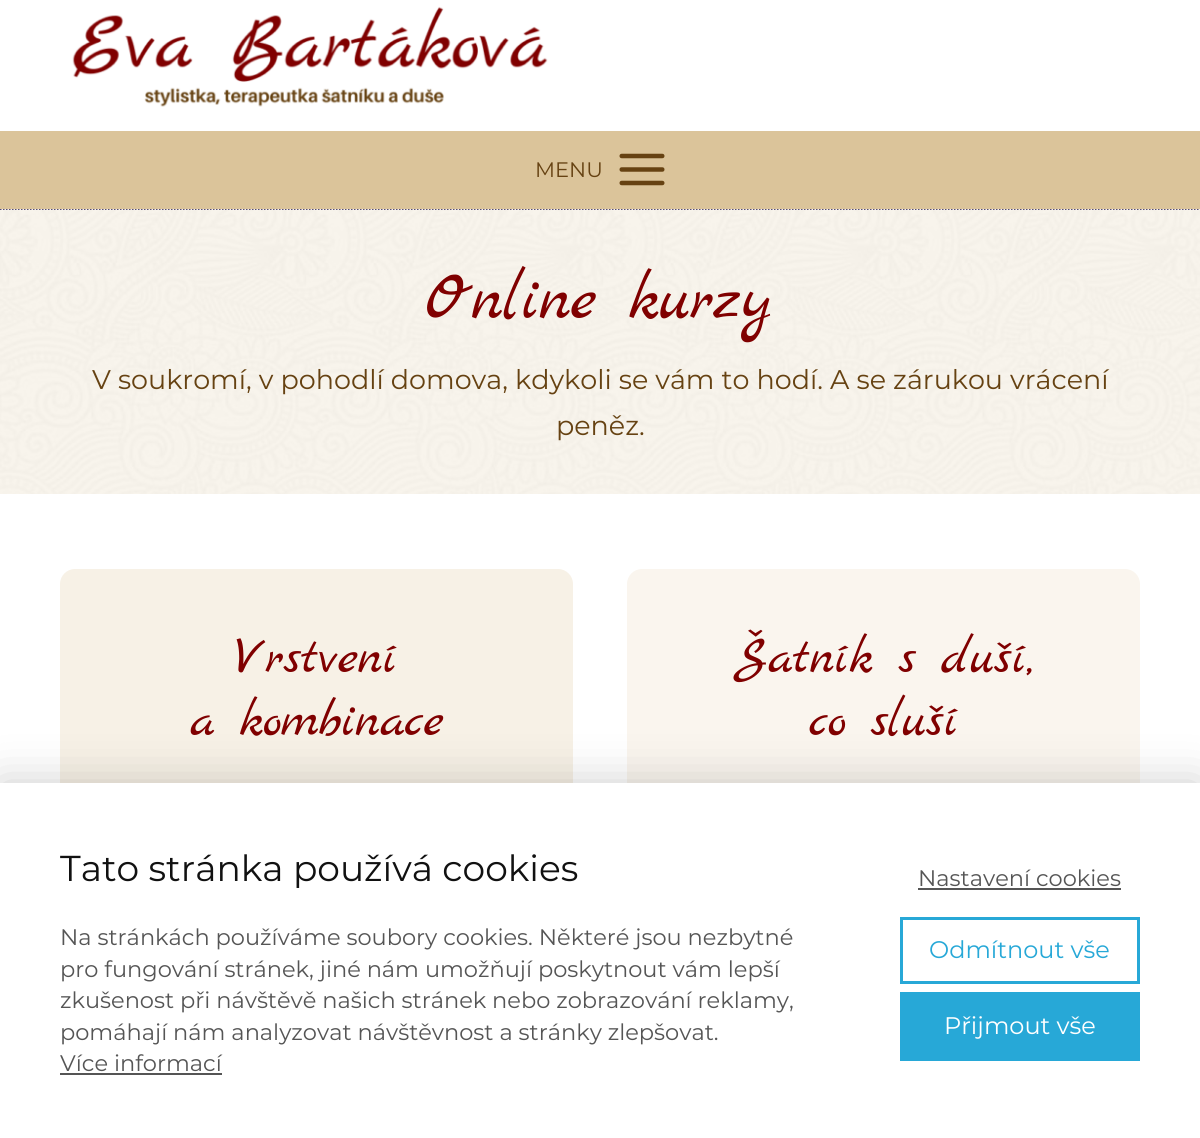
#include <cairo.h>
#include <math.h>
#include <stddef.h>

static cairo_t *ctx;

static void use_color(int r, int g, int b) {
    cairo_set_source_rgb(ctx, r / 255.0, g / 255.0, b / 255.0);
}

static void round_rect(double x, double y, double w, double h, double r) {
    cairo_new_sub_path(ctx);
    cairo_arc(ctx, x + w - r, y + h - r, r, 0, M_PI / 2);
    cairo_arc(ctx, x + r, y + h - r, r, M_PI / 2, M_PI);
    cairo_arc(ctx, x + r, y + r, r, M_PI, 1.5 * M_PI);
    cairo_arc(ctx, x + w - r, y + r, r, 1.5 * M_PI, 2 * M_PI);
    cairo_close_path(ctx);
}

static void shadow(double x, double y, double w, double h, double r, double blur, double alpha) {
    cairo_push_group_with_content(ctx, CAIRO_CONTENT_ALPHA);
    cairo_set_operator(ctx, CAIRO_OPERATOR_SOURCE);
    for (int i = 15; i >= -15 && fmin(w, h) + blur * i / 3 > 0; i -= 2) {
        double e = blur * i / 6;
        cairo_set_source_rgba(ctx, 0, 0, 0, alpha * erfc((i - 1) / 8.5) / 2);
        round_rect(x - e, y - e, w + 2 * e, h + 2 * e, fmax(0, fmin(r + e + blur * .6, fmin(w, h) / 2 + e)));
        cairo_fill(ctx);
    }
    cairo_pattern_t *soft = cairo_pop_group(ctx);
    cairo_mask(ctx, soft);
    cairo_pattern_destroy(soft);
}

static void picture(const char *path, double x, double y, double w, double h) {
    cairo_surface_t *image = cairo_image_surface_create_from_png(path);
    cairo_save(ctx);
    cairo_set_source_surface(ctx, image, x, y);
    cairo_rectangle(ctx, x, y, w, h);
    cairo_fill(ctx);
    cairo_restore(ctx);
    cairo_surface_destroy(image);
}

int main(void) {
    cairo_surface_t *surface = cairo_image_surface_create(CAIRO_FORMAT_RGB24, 1200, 1138);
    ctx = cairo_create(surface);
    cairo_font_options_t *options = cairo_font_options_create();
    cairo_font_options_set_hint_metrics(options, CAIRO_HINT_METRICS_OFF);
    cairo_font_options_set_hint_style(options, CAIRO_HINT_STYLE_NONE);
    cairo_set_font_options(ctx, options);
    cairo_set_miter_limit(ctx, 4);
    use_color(255, 255, 255);
    cairo_paint(ctx);
    picture("img1.png", 72, 6, 476, 101);
    picture("img3.png", 0, 209, 1200, 285);
    cairo_set_source_rgba(ctx, 0.969, 0.945, 0.902, 0.7);
    cairo_rectangle(ctx, 0, 209, 1200, 285);
    cairo_fill(ctx);
    cairo_new_path(ctx);
    cairo_move_to(ctx, 0, 209);
    cairo_line_to(ctx, 1200, 209);
    use_color(35, 22, 81);
    cairo_set_line_width(ctx, 1.5);
    cairo_set_dash(ctx, (double[]){1.5, 1.5}, 2, 0);
    cairo_stroke(ctx);
    use_color(219, 196, 154);
    cairo_rectangle(ctx, 0, 131, 1200, 78);
    cairo_fill(ctx);
    cairo_select_font_face(ctx, "Montserrat", CAIRO_FONT_SLANT_NORMAL, CAIRO_FONT_WEIGHT_NORMAL);
    cairo_set_font_size(ctx, 21);
    use_color(102, 66, 18);
    cairo_move_to(ctx, 535, 177);
    cairo_show_text(ctx, "MENU");
    picture("img2.png", 619, 153, 46, 33);
    cairo_select_font_face(ctx, "Marck Script", CAIRO_FONT_SLANT_NORMAL, CAIRO_FONT_WEIGHT_NORMAL);
    cairo_set_font_size(ctx, 67.5);
    use_color(128, 0, 0);
    cairo_move_to(ctx, 425, 318);
    cairo_show_text(ctx, "Online kurzy");
    cairo_select_font_face(ctx, "Montserrat", CAIRO_FONT_SLANT_NORMAL, CAIRO_FONT_WEIGHT_NORMAL);
    cairo_set_font_size(ctx, 27);
    use_color(102, 66, 18);
    cairo_move_to(ctx, 92, 389);
    cairo_show_text(ctx, "V soukromí, v pohodlí domova, kdykoli se vám to hodí. A se zárukou vrácení");
    cairo_move_to(ctx, 556, 435);
    cairo_show_text(ctx, "peněz.");
    use_color(247, 241, 230);
    round_rect(60, 569, 513, 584, 15);
    cairo_fill(ctx);
    cairo_select_font_face(ctx, "Marck Script", CAIRO_FONT_SLANT_NORMAL, CAIRO_FONT_WEIGHT_NORMAL);
    cairo_set_font_size(ctx, 52.5);
    use_color(128, 0, 0);
    cairo_move_to(ctx, 235, 672);
    cairo_show_text(ctx, "Vrstvení");
    cairo_move_to(ctx, 190, 735);
    cairo_show_text(ctx, "a kombinace");
    use_color(250, 245, 238);
    round_rect(627, 569, 513, 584, 15);
    cairo_fill(ctx);
    use_color(128, 0, 0);
    cairo_move_to(ctx, 734, 672);
    cairo_show_text(ctx, "Šatník s duší,");
    cairo_move_to(ctx, 809, 735);
    cairo_show_text(ctx, "co sluší");
    use_color(0, 0, 0);
    shadow(0, 783, 1200, 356, 0, 22.5, 0.2);
    use_color(255, 255, 255);
    cairo_rectangle(ctx, 0, 783, 1200, 355);
    cairo_fill(ctx);
    cairo_select_font_face(ctx, "Montserrat", CAIRO_FONT_SLANT_NORMAL, CAIRO_FONT_WEIGHT_NORMAL);
    cairo_set_font_size(ctx, 36);
    use_color(17, 17, 17);
    cairo_move_to(ctx, 60, 881);
    cairo_show_text(ctx, "Tato stránka používá cookies");
    cairo_set_font_size(ctx, 22.5);
    use_color(85, 85, 85);
    cairo_move_to(ctx, 60, 945);
    cairo_show_text(ctx, "Na stránkách používáme soubory cookies. Některé jsou nezbytné");
    cairo_move_to(ctx, 60, 977);
    cairo_show_text(ctx, "pro fungování stránek, jiné nám umožňují poskytnout vám lepší");
    cairo_move_to(ctx, 60, 1008);
    cairo_show_text(ctx, "zkušenost při návštěvě našich stránek nebo zobrazování reklamy,");
    cairo_move_to(ctx, 60, 1040);
    cairo_show_text(ctx, "pomáhají nám analyzovat návštěvnost a stránky zlepšovat.");
    cairo_move_to(ctx, 60, 1071);
    cairo_show_text(ctx, "Více informací");
    cairo_rectangle(ctx, 60, 1073, 162, 2);
    cairo_fill(ctx);
    cairo_move_to(ctx, 918, 886);
    cairo_show_text(ctx, "Nastavení cookies");
    cairo_rectangle(ctx, 918, 888, 203, 2);
    cairo_fill(ctx);
    cairo_rectangle(ctx, 901.5, 918.5, 237, 64);
    use_color(39, 168, 215);
    cairo_set_line_width(ctx, 3);
    cairo_set_dash(ctx, NULL, 0, 0);
    cairo_stroke(ctx);
    cairo_set_font_size(ctx, 24);
    cairo_move_to(ctx, 929, 958);
    cairo_show_text(ctx, "Odmítnout vše");
    cairo_rectangle(ctx, 900, 992, 240, 69);
    cairo_fill(ctx);
    use_color(255, 255, 255);
    cairo_move_to(ctx, 944, 1034);
    cairo_show_text(ctx, "Přijmout vše");
    cairo_surface_write_to_png(surface, "result.png");
    cairo_font_options_destroy(options);
    cairo_destroy(ctx);
    cairo_surface_destroy(surface);
    return 0;
}
